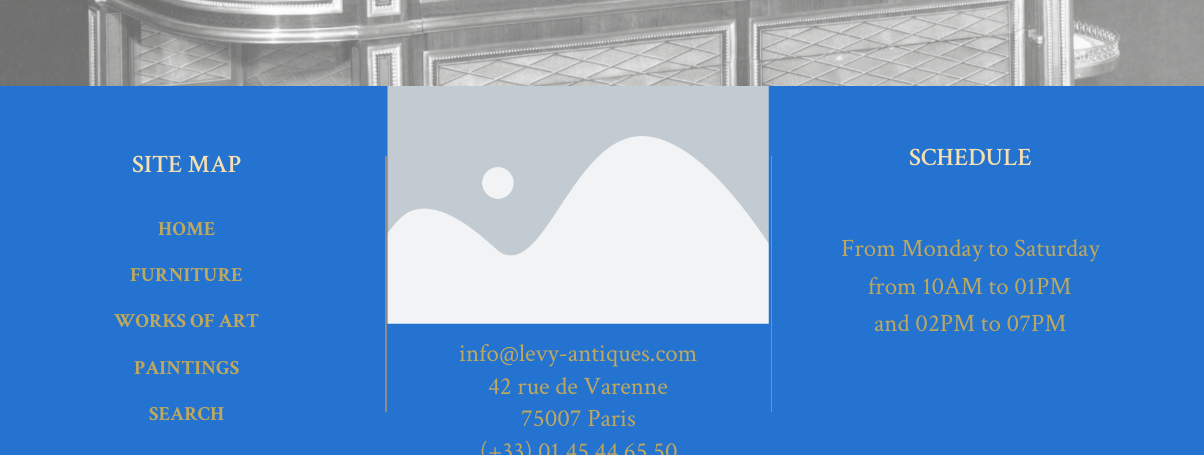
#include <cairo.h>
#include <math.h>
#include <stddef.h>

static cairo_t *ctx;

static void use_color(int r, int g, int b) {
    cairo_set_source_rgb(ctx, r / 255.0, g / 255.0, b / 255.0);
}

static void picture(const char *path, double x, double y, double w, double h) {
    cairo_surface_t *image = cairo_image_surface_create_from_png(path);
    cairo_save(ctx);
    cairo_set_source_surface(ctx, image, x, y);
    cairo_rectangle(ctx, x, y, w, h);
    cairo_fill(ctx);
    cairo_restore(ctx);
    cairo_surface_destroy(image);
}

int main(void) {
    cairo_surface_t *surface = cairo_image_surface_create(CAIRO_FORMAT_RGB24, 1204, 455);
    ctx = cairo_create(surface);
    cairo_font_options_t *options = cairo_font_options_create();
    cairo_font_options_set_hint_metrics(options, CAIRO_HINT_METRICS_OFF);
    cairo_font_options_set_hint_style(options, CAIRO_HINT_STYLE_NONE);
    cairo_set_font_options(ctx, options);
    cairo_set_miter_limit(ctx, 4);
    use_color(36, 115, 209);
    cairo_paint(ctx);
    picture("img1.png", 0, 0, 1204, 86);
    cairo_select_font_face(ctx, "Crimson Text SemiBold", CAIRO_FONT_SLANT_NORMAL, CAIRO_FONT_WEIGHT_NORMAL);
    cairo_set_font_size(ctx, 25);
    use_color(246, 224, 175);
    cairo_move_to(ctx, 132, 172);
    cairo_show_text(ctx, "SITE MAP");
    cairo_select_font_face(ctx, "Crimson Text", CAIRO_FONT_SLANT_NORMAL, CAIRO_FONT_WEIGHT_BOLD);
    cairo_set_font_size(ctx, 20);
    use_color(189, 168, 93);
    cairo_move_to(ctx, 158, 235);
    cairo_show_text(ctx, "HOME");
    cairo_move_to(ctx, 130, 281);
    cairo_show_text(ctx, "FURNITURE");
    cairo_move_to(ctx, 114, 327);
    cairo_show_text(ctx, "WORKS OF ART");
    cairo_move_to(ctx, 134, 374);
    cairo_show_text(ctx, "PAINTINGS");
    cairo_move_to(ctx, 149, 420);
    cairo_show_text(ctx, "SEARCH");
    use_color(140, 140, 141);
    cairo_rectangle(ctx, 385, 156, 2, 256);
    cairo_fill(ctx);
    picture("img2.png", 387, 86, 382, 238);
    cairo_select_font_face(ctx, "Crimson Text", CAIRO_FONT_SLANT_NORMAL, CAIRO_FONT_WEIGHT_NORMAL);
    cairo_set_font_size(ctx, 25);
    use_color(189, 168, 93);
    cairo_move_to(ctx, 459, 361);
    cairo_show_text(ctx, "info@levy-antiques.com");
    cairo_move_to(ctx, 488, 394);
    cairo_show_text(ctx, "42 rue de Varenne");
    cairo_move_to(ctx, 521, 426);
    cairo_show_text(ctx, "75007 Paris");
    cairo_move_to(ctx, 480, 459);
    cairo_show_text(ctx, "(+33) 01 45 44 65 50");
    use_color(140, 140, 141);
    cairo_rectangle(ctx, 771, 156, 1, 256);
    cairo_fill(ctx);
    cairo_select_font_face(ctx, "Crimson Text SemiBold", CAIRO_FONT_SLANT_NORMAL, CAIRO_FONT_WEIGHT_NORMAL);
    use_color(246, 224, 175);
    cairo_move_to(ctx, 909, 165);
    cairo_show_text(ctx, "SCHEDULE");
    cairo_select_font_face(ctx, "Crimson Text", CAIRO_FONT_SLANT_NORMAL, CAIRO_FONT_WEIGHT_NORMAL);
    use_color(189, 168, 93);
    cairo_move_to(ctx, 841, 256);
    cairo_show_text(ctx, "From Monday to Saturday");
    cairo_move_to(ctx, 868, 294);
    cairo_show_text(ctx, "from 10AM to 01PM");
    cairo_move_to(ctx, 874, 331);
    cairo_show_text(ctx, "and 02PM to 07PM");
    cairo_surface_write_to_png(surface, "result.png");
    cairo_font_options_destroy(options);
    cairo_destroy(ctx);
    cairo_surface_destroy(surface);
    return 0;
}
